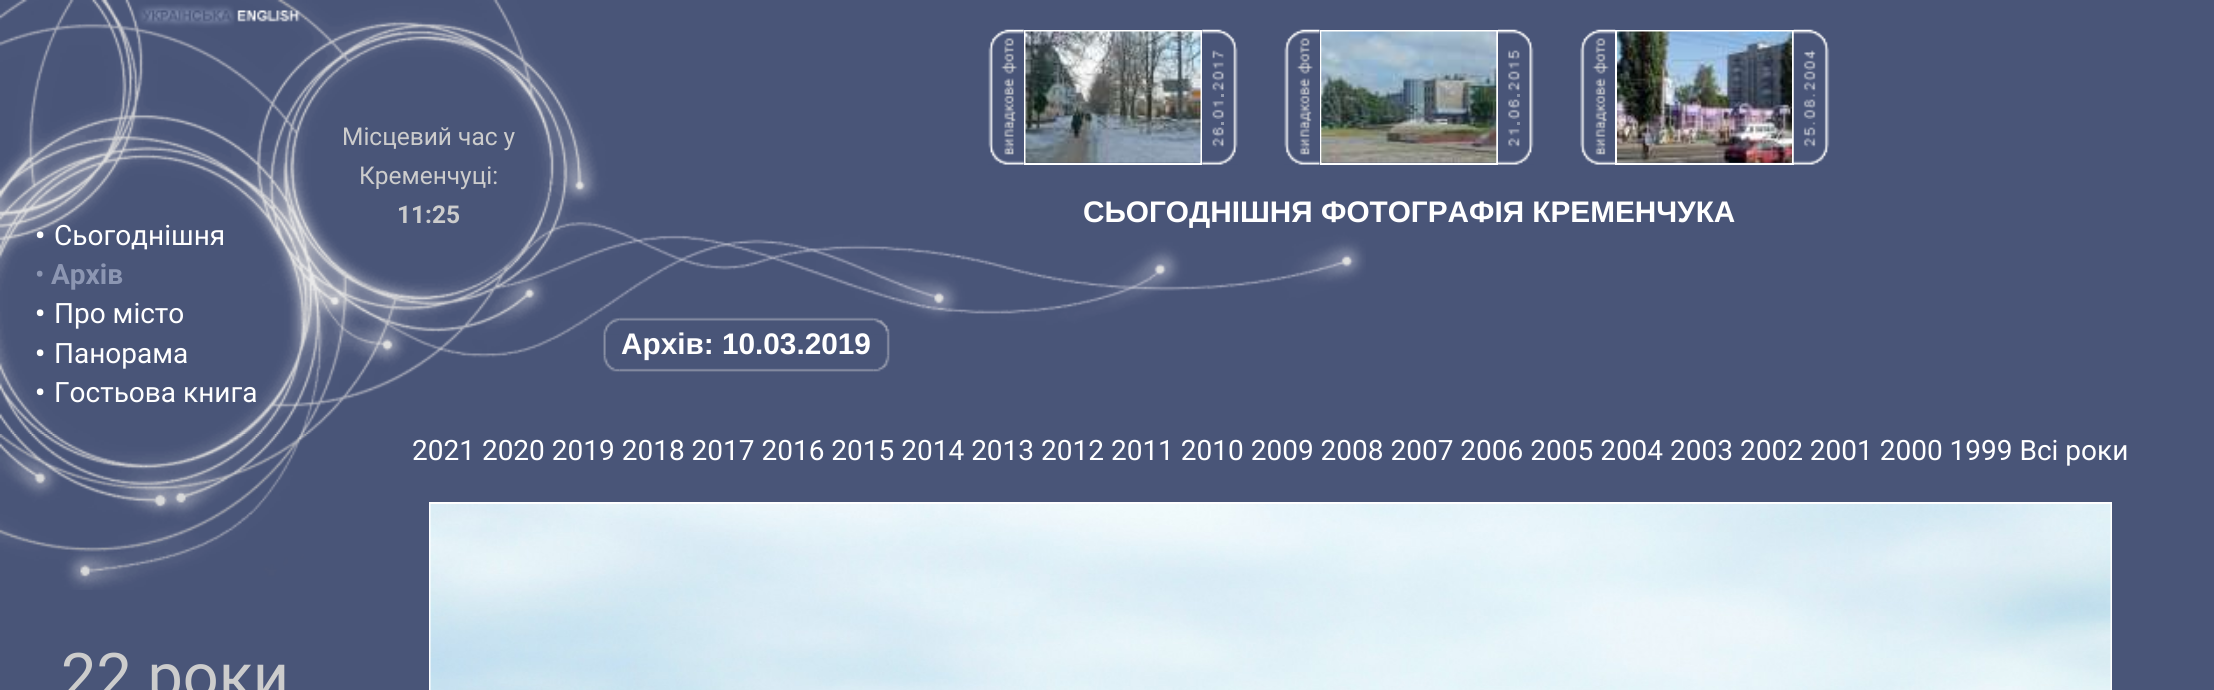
#include <cairo.h>
#include <math.h>
#include <stddef.h>

static cairo_t *ctx;

static void use_color(int r, int g, int b) {
    cairo_set_source_rgb(ctx, r / 255.0, g / 255.0, b / 255.0);
}

static void picture(const char *path, double x, double y, double w, double h) {
    cairo_surface_t *image = cairo_image_surface_create_from_png(path);
    cairo_save(ctx);
    cairo_set_source_surface(ctx, image, x, y);
    cairo_rectangle(ctx, x, y, w, h);
    cairo_fill(ctx);
    cairo_restore(ctx);
    cairo_surface_destroy(image);
}

int main(void) {
    cairo_surface_t *surface = cairo_image_surface_create(CAIRO_FORMAT_RGB24, 2214, 690);
    ctx = cairo_create(surface);
    cairo_font_options_t *options = cairo_font_options_create();
    cairo_font_options_set_hint_metrics(options, CAIRO_HINT_METRICS_OFF);
    cairo_font_options_set_hint_style(options, CAIRO_HINT_STYLE_NONE);
    cairo_set_font_options(ctx, options);
    cairo_set_miter_limit(ctx, 4);
    use_color(73, 85, 120);
    cairo_paint(ctx);
    picture("img1.png", 0, 0, 1366, 434);
    picture("img2.png", 134, 4, 101, 24);
    picture("img3.png", 237, 0, 70, 22);
    cairo_select_font_face(ctx, "Roboto", CAIRO_FONT_SLANT_NORMAL, CAIRO_FONT_WEIGHT_NORMAL);
    cairo_set_font_size(ctx, 24.5);
    use_color(204, 204, 204);
    cairo_move_to(ctx, 342, 145);
    cairo_show_text(ctx, "Місцевий час у");
    cairo_move_to(ctx, 359, 184);
    cairo_show_text(ctx, "Кременчуці:");
    cairo_select_font_face(ctx, "Roboto", CAIRO_FONT_SLANT_NORMAL, CAIRO_FONT_WEIGHT_BOLD);
    cairo_move_to(ctx, 397, 223);
    cairo_show_text(ctx, "11:25");
    cairo_set_font_size(ctx, 28);
    use_color(255, 255, 255);
    cairo_move_to(ctx, 35, 245);
    cairo_show_text(ctx, "•");
    cairo_select_font_face(ctx, "Roboto", CAIRO_FONT_SLANT_NORMAL, CAIRO_FONT_WEIGHT_NORMAL);
    cairo_move_to(ctx, 54, 245);
    cairo_show_text(ctx, "Сьогоднішня");
    use_color(140, 150, 178);
    cairo_move_to(ctx, 35, 284);
    cairo_show_text(ctx, "•");
    cairo_select_font_face(ctx, "Roboto", CAIRO_FONT_SLANT_NORMAL, CAIRO_FONT_WEIGHT_BOLD);
    cairo_move_to(ctx, 51, 284);
    cairo_show_text(ctx, "Архів");
    use_color(255, 255, 255);
    cairo_move_to(ctx, 35, 323);
    cairo_show_text(ctx, "•");
    cairo_select_font_face(ctx, "Roboto", CAIRO_FONT_SLANT_NORMAL, CAIRO_FONT_WEIGHT_NORMAL);
    cairo_move_to(ctx, 54, 323);
    cairo_show_text(ctx, "Про місто");
    cairo_select_font_face(ctx, "Roboto", CAIRO_FONT_SLANT_NORMAL, CAIRO_FONT_WEIGHT_BOLD);
    cairo_move_to(ctx, 35, 363);
    cairo_show_text(ctx, "•");
    cairo_select_font_face(ctx, "Roboto", CAIRO_FONT_SLANT_NORMAL, CAIRO_FONT_WEIGHT_NORMAL);
    cairo_move_to(ctx, 54, 363);
    cairo_show_text(ctx, "Панорама");
    cairo_select_font_face(ctx, "Roboto", CAIRO_FONT_SLANT_NORMAL, CAIRO_FONT_WEIGHT_BOLD);
    cairo_move_to(ctx, 35, 402);
    cairo_show_text(ctx, "•");
    cairo_select_font_face(ctx, "Roboto", CAIRO_FONT_SLANT_NORMAL, CAIRO_FONT_WEIGHT_NORMAL);
    cairo_move_to(ctx, 54, 402);
    cairo_show_text(ctx, "Гостьова книга");
    picture("img4.png", 988, 29, 36, 136);
    cairo_rectangle(ctx, 1025, 31, 176, 133);
    cairo_stroke(ctx);
    picture("img5.png", 1025, 31, 176, 132);
    picture("img6.png", 1202, 29, 36, 136);
    picture("img7.png", 1212, 50, 12, 9);
    picture("img8.png", 1212, 62, 12, 7);
    picture("img9.png", 1212, 71, 12, 10);
    picture("img10.png", 1212, 80, 12, 11);
    use_color(146, 154, 174);
    cairo_rectangle(ctx, 1221, 94, 3, 3);
    cairo_fill(ctx);
    picture("img11.png", 1212, 101, 12, 7);
    picture("img12.png", 1212, 109, 12, 10);
    cairo_rectangle(ctx, 1221, 122, 3, 3);
    cairo_fill(ctx);
    picture("img13.png", 1212, 127, 12, 10);
    picture("img14.png", 1212, 136, 12, 11);
    picture("img15.png", 1284, 29, 36, 136);
    cairo_rectangle(ctx, 1321, 31, 176, 133);
    use_color(255, 255, 255);
    cairo_stroke(ctx);
    picture("img16.png", 1321, 31, 176, 132);
    picture("img17.png", 1498, 29, 36, 136);
    picture("img18.png", 1508, 50, 12, 10);
    picture("img19.png", 1508, 59, 12, 10);
    picture("img20.png", 1508, 71, 12, 10);
    picture("img21.png", 1508, 80, 12, 11);
    use_color(136, 145, 167);
    cairo_rectangle(ctx, 1517, 94, 3, 3);
    cairo_fill(ctx);
    picture("img22.png", 1508, 99, 12, 10);
    picture("img23.png", 1508, 108, 12, 11);
    cairo_rectangle(ctx, 1517, 122, 3, 3);
    cairo_fill(ctx);
    picture("img24.png", 1508, 129, 12, 7);
    picture("img25.png", 1508, 138, 12, 9);
    picture("img26.png", 1580, 29, 36, 136);
    cairo_rectangle(ctx, 1616, 31, 177, 133);
    use_color(255, 255, 255);
    cairo_stroke(ctx);
    picture("img27.png", 1617, 31, 175, 132);
    picture("img28.png", 1793, 29, 37, 136);
    picture("img29.png", 1804, 50, 12, 10);
    picture("img30.png", 1803, 59, 13, 11);
    picture("img31.png", 1803, 71, 13, 10);
    picture("img32.png", 1803, 80, 13, 11);
    picture("img33.png", 1812, 94, 4, 3);
    picture("img34.png", 1803, 99, 13, 10);
    picture("img35.png", 1803, 108, 13, 11);
    picture("img33.png", 1812, 122, 4, 3);
    picture("img36.png", 1803, 127, 13, 10);
    picture("img37.png", 1803, 136, 13, 11);
    cairo_select_font_face(ctx, "Arimo", CAIRO_FONT_SLANT_NORMAL, CAIRO_FONT_WEIGHT_BOLD);
    cairo_set_font_size(ctx, 29.75);
    cairo_move_to(ctx, 1083, 222);
    cairo_show_text(ctx, "СЬОГОДНІШНЯ ФОТОГРАФІЯ КРЕМЕНЧУКА");
    picture("img38.png", 603, 317, 287, 55);
    cairo_move_to(ctx, 621, 354);
    cairo_show_text(ctx, "Архів: 10.03.2019");
    cairo_select_font_face(ctx, "Roboto", CAIRO_FONT_SLANT_NORMAL, CAIRO_FONT_WEIGHT_NORMAL);
    cairo_set_font_size(ctx, 28);
    cairo_move_to(ctx, 412, 460);
    cairo_show_text(ctx, "2021 2020 2019 2018 2017 2016 2015 2014 2013 2012 2011 2010 2009 2008 2007 2006 2005 2004 2003 2002 2001 2000 1999 Всі роки");
    cairo_rectangle(ctx, 430, 503, 1681, 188);
    cairo_stroke(ctx);
    picture("img39.png", 430, 504, 1681, 186);
    picture("img40.png", 0, 434, 309, 156);
    cairo_set_font_size(ctx, 63);
    use_color(204, 204, 204);
    cairo_move_to(ctx, 61, 698);
    cairo_show_text(ctx, "22 роки");
    cairo_surface_write_to_png(surface, "result.png");
    cairo_font_options_destroy(options);
    cairo_destroy(ctx);
    cairo_surface_destroy(surface);
    return 0;
}
